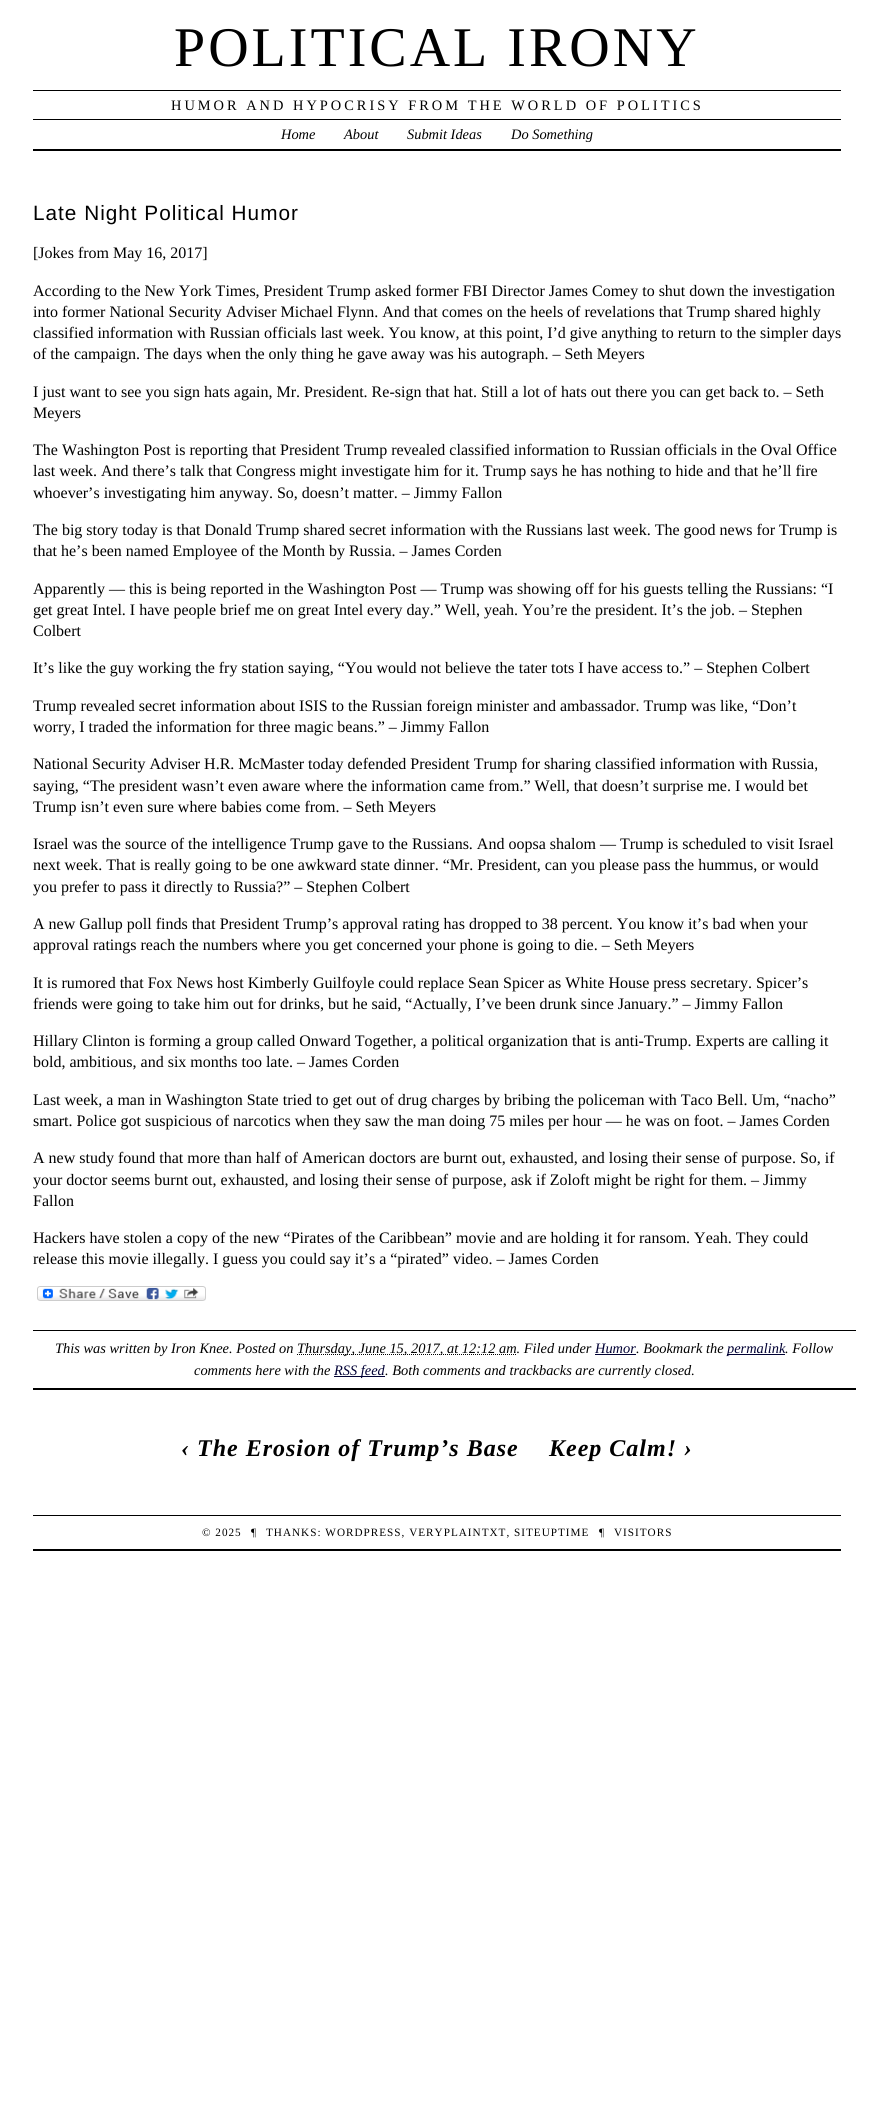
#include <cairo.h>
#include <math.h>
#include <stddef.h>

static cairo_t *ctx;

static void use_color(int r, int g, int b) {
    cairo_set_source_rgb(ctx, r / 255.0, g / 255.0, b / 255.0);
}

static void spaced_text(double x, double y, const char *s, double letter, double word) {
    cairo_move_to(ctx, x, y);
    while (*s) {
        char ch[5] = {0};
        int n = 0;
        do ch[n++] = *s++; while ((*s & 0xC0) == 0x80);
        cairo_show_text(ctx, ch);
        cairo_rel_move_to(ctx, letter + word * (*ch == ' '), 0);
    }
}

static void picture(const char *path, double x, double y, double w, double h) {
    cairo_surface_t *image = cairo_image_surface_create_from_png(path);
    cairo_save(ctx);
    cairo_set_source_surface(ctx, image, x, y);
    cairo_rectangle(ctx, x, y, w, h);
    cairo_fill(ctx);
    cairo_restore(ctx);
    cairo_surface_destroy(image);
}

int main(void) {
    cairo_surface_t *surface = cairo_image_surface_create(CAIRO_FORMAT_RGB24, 874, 2127);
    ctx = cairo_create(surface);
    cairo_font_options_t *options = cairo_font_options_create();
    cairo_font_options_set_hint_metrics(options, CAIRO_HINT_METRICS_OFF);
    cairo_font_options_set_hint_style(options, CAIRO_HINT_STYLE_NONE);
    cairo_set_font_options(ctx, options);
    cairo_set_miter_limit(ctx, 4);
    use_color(255, 255, 255);
    cairo_paint(ctx);
    cairo_select_font_face(ctx, "Liberation Serif", CAIRO_FONT_SLANT_NORMAL, CAIRO_FONT_WEIGHT_NORMAL);
    cairo_set_font_size(ctx, 56);
    use_color(0, 0, 0);
    spaced_text(174, 66, "POLITICAL IRONY", 3, 0);
    cairo_rectangle(ctx, 33, 90, 808, 1);
    cairo_fill(ctx);
    cairo_set_font_size(ctx, 14.4);
    spaced_text(171, 110, "HUMOR AND HYPOCRISY FROM THE WORLD OF POLITICS", 3, 0);
    cairo_rectangle(ctx, 33, 119, 808, 1);
    cairo_fill(ctx);
    cairo_rectangle(ctx, 33, 149, 808, 2);
    cairo_fill(ctx);
    cairo_select_font_face(ctx, "Liberation Serif", CAIRO_FONT_SLANT_ITALIC, CAIRO_FONT_WEIGHT_NORMAL);
    cairo_move_to(ctx, 281, 139);
    cairo_show_text(ctx, "Home");
    cairo_move_to(ctx, 344, 139);
    cairo_show_text(ctx, "About");
    cairo_move_to(ctx, 407, 139);
    cairo_show_text(ctx, "Submit Ideas");
    cairo_move_to(ctx, 511, 139);
    cairo_show_text(ctx, "Do Something");
    cairo_select_font_face(ctx, "Liberation Sans", CAIRO_FONT_SLANT_NORMAL, CAIRO_FONT_WEIGHT_NORMAL);
    cairo_set_font_size(ctx, 20.75);
    spaced_text(33, 220, "Late Night Political Humor", 1, 0);
    cairo_select_font_face(ctx, "Liberation Serif", CAIRO_FONT_SLANT_NORMAL, CAIRO_FONT_WEIGHT_NORMAL);
    cairo_set_font_size(ctx, 16);
    cairo_move_to(ctx, 33, 258);
    cairo_show_text(ctx, "[Jokes from May 16, 2017]");
    cairo_move_to(ctx, 33, 296);
    cairo_show_text(ctx, "According to the New York Times, President Trump asked former FBI Director James Comey to shut down the investigation");
    cairo_move_to(ctx, 33, 317);
    cairo_show_text(ctx, "into former National Security Adviser Michael Flynn. And that comes on the heels of revelations that Trump shared highly");
    cairo_move_to(ctx, 33, 338);
    cairo_show_text(ctx, "classified information with Russian officials last week. You know, at this point, I’d give anything to return to the simpler days");
    cairo_move_to(ctx, 33, 359);
    cairo_show_text(ctx, "of the campaign. The days when the only thing he gave away was his autograph. – Seth Meyers");
    cairo_move_to(ctx, 33, 397);
    cairo_show_text(ctx, "I just want to see you sign hats again, Mr. President. Re-sign that hat. Still a lot of hats out there you can get back to. – Seth");
    cairo_move_to(ctx, 33, 418);
    cairo_show_text(ctx, "Meyers");
    cairo_move_to(ctx, 33, 455);
    cairo_show_text(ctx, "The Washington Post is reporting that President Trump revealed classified information to Russian officials in the Oval Office");
    cairo_move_to(ctx, 33, 476);
    cairo_show_text(ctx, "last week. And there’s talk that Congress might investigate him for it. Trump says he has nothing to hide and that he’ll fire");
    cairo_move_to(ctx, 33, 498);
    cairo_show_text(ctx, "whoever’s investigating him anyway. So, doesn’t matter. – Jimmy Fallon");
    cairo_move_to(ctx, 33, 535);
    cairo_show_text(ctx, "The big story today is that Donald Trump shared secret information with the Russians last week. The good news for Trump is");
    cairo_move_to(ctx, 33, 556);
    cairo_show_text(ctx, "that he’s been named Employee of the Month by Russia. – James Corden");
    cairo_move_to(ctx, 33, 594);
    cairo_show_text(ctx, "Apparently — this is being reported in the Washington Post — Trump was showing off for his guests telling the Russians: “I");
    cairo_move_to(ctx, 33, 615);
    cairo_show_text(ctx, "get great Intel. I have people brief me on great Intel every day.” Well, yeah. You’re the president. It’s the job. – Stephen");
    cairo_move_to(ctx, 33, 636);
    cairo_show_text(ctx, "Colbert");
    cairo_move_to(ctx, 33, 673);
    cairo_show_text(ctx, "It’s like the guy working the fry station saying, “You would not believe the tater tots I have access to.” – Stephen Colbert");
    cairo_move_to(ctx, 33, 711);
    cairo_show_text(ctx, "Trump revealed secret information about ISIS to the Russian foreign minister and ambassador. Trump was like, “Don’t");
    cairo_move_to(ctx, 33, 732);
    cairo_show_text(ctx, "worry, I traded the information for three magic beans.” – Jimmy Fallon");
    cairo_move_to(ctx, 33, 769);
    cairo_show_text(ctx, "National Security Adviser H.R. McMaster today defended President Trump for sharing classified information with Russia,");
    cairo_move_to(ctx, 33, 791);
    cairo_show_text(ctx, "saying, “The president wasn’t even aware where the information came from.” Well, that doesn’t surprise me. I would bet");
    cairo_move_to(ctx, 33, 812);
    cairo_show_text(ctx, "Trump isn’t even sure where babies come from. – Seth Meyers");
    cairo_move_to(ctx, 33, 849);
    cairo_show_text(ctx, "Israel was the source of the intelligence Trump gave to the Russians. And oopsa shalom — Trump is scheduled to visit Israel");
    cairo_move_to(ctx, 33, 870);
    cairo_show_text(ctx, "next week. That is really going to be one awkward state dinner. “Mr. President, can you please pass the hummus, or would");
    cairo_move_to(ctx, 33, 892);
    cairo_show_text(ctx, "you prefer to pass it directly to Russia?” – Stephen Colbert");
    cairo_move_to(ctx, 33, 929);
    cairo_show_text(ctx, "A new Gallup poll finds that President Trump’s approval rating has dropped to 38 percent. You know it’s bad when your");
    cairo_move_to(ctx, 33, 950);
    cairo_show_text(ctx, "approval ratings reach the numbers where you get concerned your phone is going to die. – Seth Meyers");
    cairo_move_to(ctx, 33, 988);
    cairo_show_text(ctx, "It is rumored that Fox News host Kimberly Guilfoyle could replace Sean Spicer as White House press secretary. Spicer’s");
    cairo_move_to(ctx, 33, 1009);
    cairo_show_text(ctx, "friends were going to take him out for drinks, but he said, “Actually, I’ve been drunk since January.” – Jimmy Fallon");
    cairo_move_to(ctx, 33, 1046);
    cairo_show_text(ctx, "Hillary Clinton is forming a group called Onward Together, a political organization that is anti-Trump. Experts are calling it");
    cairo_move_to(ctx, 33, 1067);
    cairo_show_text(ctx, "bold, ambitious, and six months too late. – James Corden");
    cairo_move_to(ctx, 33, 1105);
    cairo_show_text(ctx, "Last week, a man in Washington State tried to get out of drug charges by bribing the policeman with Taco Bell. Um, “nacho”");
    cairo_move_to(ctx, 33, 1126);
    cairo_show_text(ctx, "smart. Police got suspicious of narcotics when they saw the man doing 75 miles per hour — he was on foot. – James Corden");
    cairo_move_to(ctx, 33, 1163);
    cairo_show_text(ctx, "A new study found that more than half of American doctors are burnt out, exhausted, and losing their sense of purpose. So, if");
    cairo_move_to(ctx, 33, 1185);
    cairo_show_text(ctx, "your doctor seems burnt out, exhausted, and losing their sense of purpose, ask if Zoloft might be right for them. – Jimmy");
    cairo_move_to(ctx, 33, 1206);
    cairo_show_text(ctx, "Fallon");
    cairo_move_to(ctx, 33, 1243);
    cairo_show_text(ctx, "Hackers have stolen a copy of the new “Pirates of the Caribbean” movie and are holding it for ransom. Yeah. They could");
    cairo_move_to(ctx, 33, 1264);
    cairo_show_text(ctx, "release this movie illegally. I guess you could say it’s a “pirated” video. – James Corden");
    picture("img1.png", 37, 1286, 169, 15);
    cairo_rectangle(ctx, 33, 1330, 823, 1);
    cairo_fill(ctx);
    cairo_rectangle(ctx, 33, 1388, 823, 2);
    cairo_fill(ctx);
    cairo_select_font_face(ctx, "Liberation Serif", CAIRO_FONT_SLANT_ITALIC, CAIRO_FONT_WEIGHT_NORMAL);
    cairo_set_font_size(ctx, 14.4);
    cairo_move_to(ctx, 55, 1353);
    cairo_show_text(ctx, "This was written by Iron Knee. Posted on");
    cairo_new_path(ctx);
    cairo_move_to(ctx, 297, 1354.5);
    cairo_line_to(ctx, 516.5, 1354.5);
    cairo_set_line_width(ctx, 1);
    cairo_set_dash(ctx, (double[]){1, 1}, 2, 0);
    cairo_stroke(ctx);
    cairo_move_to(ctx, 297, 1353);
    cairo_show_text(ctx, "Thursday, June 15, 2017, at 12:12 am. Filed under");
    use_color(0, 0, 51);
    cairo_move_to(ctx, 595, 1353);
    cairo_show_text(ctx, "Humor");
    cairo_rectangle(ctx, 595, 1354, 41, 1);
    cairo_fill(ctx);
    use_color(0, 0, 0);
    cairo_move_to(ctx, 636, 1353);
    cairo_show_text(ctx, ". Bookmark the");
    use_color(0, 0, 51);
    cairo_rectangle(ctx, 727, 1354, 58, 1);
    cairo_fill(ctx);
    cairo_move_to(ctx, 727, 1353);
    cairo_show_text(ctx, "permalink");
    use_color(0, 0, 0);
    cairo_move_to(ctx, 785, 1353);
    cairo_show_text(ctx, ". Follow");
    cairo_move_to(ctx, 194, 1375);
    cairo_show_text(ctx, "comments here with the");
    use_color(0, 0, 51);
    cairo_rectangle(ctx, 334, 1376, 51, 1);
    cairo_fill(ctx);
    cairo_move_to(ctx, 334, 1375);
    cairo_show_text(ctx, "RSS feed");
    use_color(0, 0, 0);
    cairo_move_to(ctx, 385, 1375);
    cairo_show_text(ctx, ". Both comments and trackbacks are currently closed.");
    cairo_select_font_face(ctx, "Liberation Serif", CAIRO_FONT_SLANT_ITALIC, CAIRO_FONT_WEIGHT_BOLD);
    cairo_set_font_size(ctx, 24);
    spaced_text(181, 1456, "‹ The Erosion of Trump’s Base", 1, 0);
    spaced_text(549, 1456, "Keep Calm! ›", 1, 0);
    cairo_rectangle(ctx, 33, 1515, 808, 1);
    cairo_fill(ctx);
    cairo_rectangle(ctx, 33, 1549, 808, 2);
    cairo_fill(ctx);
    cairo_select_font_face(ctx, "Liberation Serif", CAIRO_FONT_SLANT_NORMAL, CAIRO_FONT_WEIGHT_NORMAL);
    cairo_set_font_size(ctx, 11.2);
    spaced_text(202, 1536, "© 2025", 1, 0);
    spaced_text(251, 1536, "¶", 1, 0);
    spaced_text(266, 1536, "THANKS: WORDPRESS, VERYPLAINTXT, SITEUPTIME", 1, 0);
    spaced_text(599, 1536, "¶", 1, 0);
    spaced_text(614, 1536, "VISITORS", 1, 0);
    cairo_surface_write_to_png(surface, "result.png");
    cairo_font_options_destroy(options);
    cairo_destroy(ctx);
    cairo_surface_destroy(surface);
    return 0;
}
